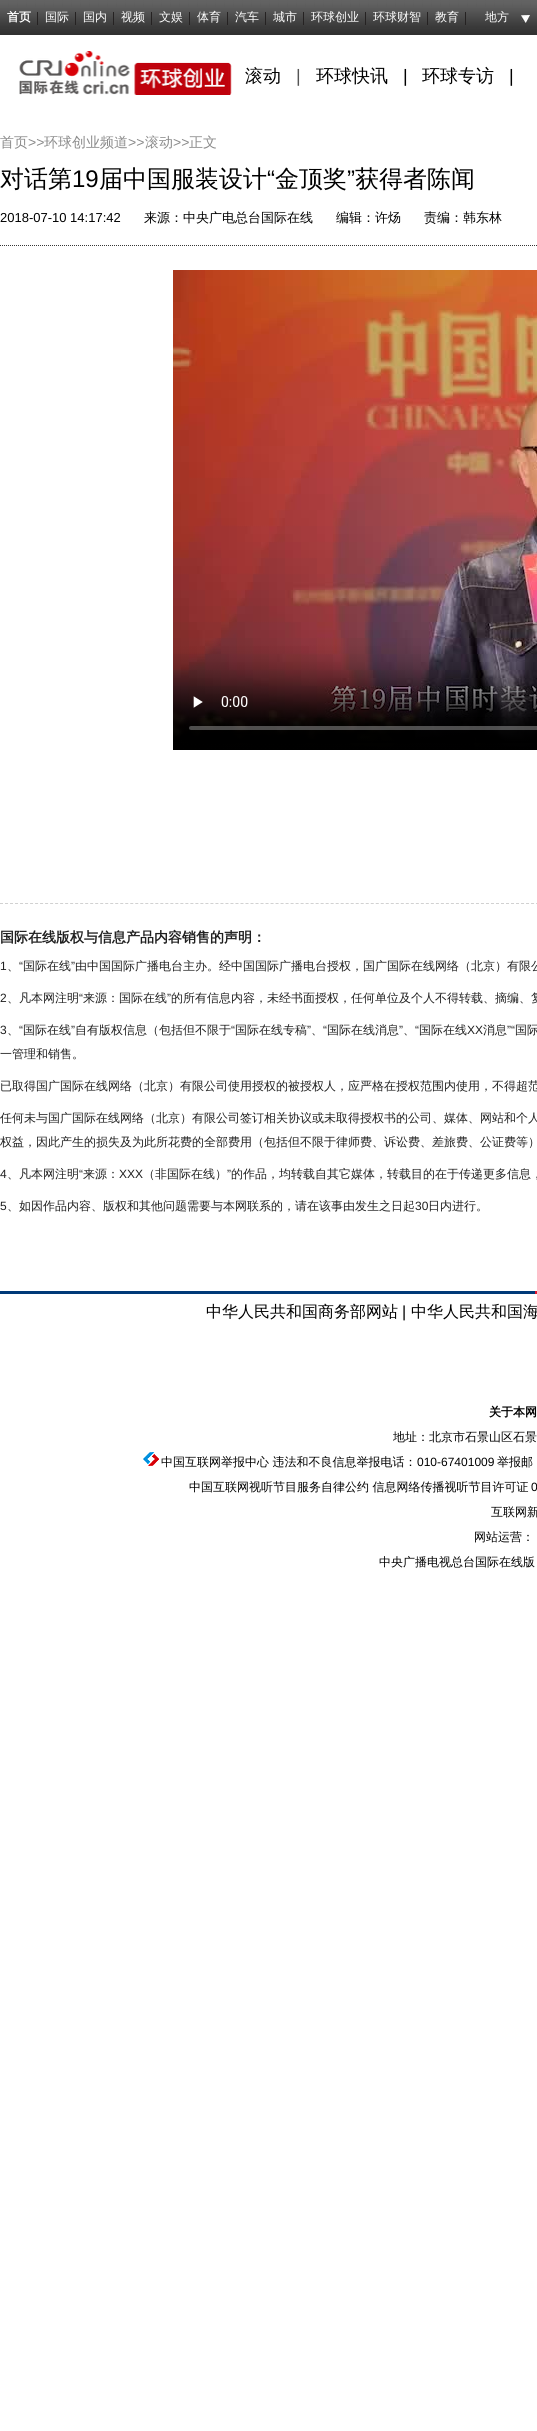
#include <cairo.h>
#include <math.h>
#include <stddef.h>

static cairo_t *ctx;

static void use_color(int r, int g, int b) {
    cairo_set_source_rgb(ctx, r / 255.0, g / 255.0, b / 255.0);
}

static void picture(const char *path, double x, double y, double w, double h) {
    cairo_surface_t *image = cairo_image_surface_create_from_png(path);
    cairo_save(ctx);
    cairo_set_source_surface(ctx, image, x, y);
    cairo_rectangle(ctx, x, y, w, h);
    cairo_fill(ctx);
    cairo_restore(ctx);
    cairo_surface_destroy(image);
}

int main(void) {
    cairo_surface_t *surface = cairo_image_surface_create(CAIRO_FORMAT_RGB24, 537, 2431);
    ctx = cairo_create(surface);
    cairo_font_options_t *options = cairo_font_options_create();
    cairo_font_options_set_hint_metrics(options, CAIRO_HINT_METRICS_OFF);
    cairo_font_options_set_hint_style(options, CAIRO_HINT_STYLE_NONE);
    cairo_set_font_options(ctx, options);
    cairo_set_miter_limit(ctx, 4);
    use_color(255, 255, 255);
    cairo_paint(ctx);
    picture("img1.png", 0, 0, 537, 35);
    use_color(37, 34, 34);
    cairo_rectangle(ctx, 37, 12, 1, 13);
    cairo_fill(ctx);
    cairo_select_font_face(ctx, "WenQuanYi Zen Hei", CAIRO_FONT_SLANT_NORMAL, CAIRO_FONT_WEIGHT_BOLD);
    cairo_set_font_size(ctx, 12);
    use_color(255, 255, 255);
    cairo_move_to(ctx, 7, 21);
    cairo_show_text(ctx, "首页");
    use_color(37, 34, 34);
    cairo_rectangle(ctx, 75, 12, 1, 13);
    cairo_fill(ctx);
    cairo_select_font_face(ctx, "WenQuanYi Zen Hei Medium", CAIRO_FONT_SLANT_NORMAL, CAIRO_FONT_WEIGHT_NORMAL);
    use_color(255, 255, 255);
    cairo_move_to(ctx, 45, 21);
    cairo_show_text(ctx, "国际");
    use_color(37, 34, 34);
    cairo_rectangle(ctx, 113, 12, 1, 13);
    cairo_fill(ctx);
    use_color(255, 255, 255);
    cairo_move_to(ctx, 83, 21);
    cairo_show_text(ctx, "国内");
    use_color(37, 34, 34);
    cairo_rectangle(ctx, 151, 12, 1, 13);
    cairo_fill(ctx);
    use_color(255, 255, 255);
    cairo_move_to(ctx, 121, 21);
    cairo_show_text(ctx, "视频");
    use_color(37, 34, 34);
    cairo_rectangle(ctx, 189, 12, 1, 13);
    cairo_fill(ctx);
    use_color(255, 255, 255);
    cairo_move_to(ctx, 159, 21);
    cairo_show_text(ctx, "文娱");
    use_color(37, 34, 34);
    cairo_rectangle(ctx, 227, 12, 1, 13);
    cairo_fill(ctx);
    use_color(255, 255, 255);
    cairo_move_to(ctx, 197, 21);
    cairo_show_text(ctx, "体育");
    use_color(37, 34, 34);
    cairo_rectangle(ctx, 265, 12, 1, 13);
    cairo_fill(ctx);
    use_color(255, 255, 255);
    cairo_move_to(ctx, 235, 21);
    cairo_show_text(ctx, "汽车");
    use_color(37, 34, 34);
    cairo_rectangle(ctx, 303, 12, 1, 13);
    cairo_fill(ctx);
    use_color(255, 255, 255);
    cairo_move_to(ctx, 273, 21);
    cairo_show_text(ctx, "城市");
    use_color(37, 34, 34);
    cairo_rectangle(ctx, 365, 12, 1, 13);
    cairo_fill(ctx);
    use_color(255, 255, 255);
    cairo_move_to(ctx, 311, 21);
    cairo_show_text(ctx, "环球创业");
    use_color(37, 34, 34);
    cairo_rectangle(ctx, 427, 12, 1, 13);
    cairo_fill(ctx);
    use_color(255, 255, 255);
    cairo_move_to(ctx, 373, 21);
    cairo_show_text(ctx, "环球财智");
    use_color(37, 34, 34);
    cairo_rectangle(ctx, 465, 12, 1, 13);
    cairo_fill(ctx);
    use_color(255, 255, 255);
    cairo_move_to(ctx, 435, 21);
    cairo_show_text(ctx, "教育");
    picture("img2.png", 521, 15, 9, 8);
    cairo_move_to(ctx, 485, 21);
    cairo_show_text(ctx, "地方");
    picture("img3.png", 19, 51, 213, 44);
    cairo_set_font_size(ctx, 18);
    use_color(0, 0, 0);
    cairo_move_to(ctx, 245, 82);
    cairo_show_text(ctx, "滚动");
    cairo_select_font_face(ctx, "Liberation Sans", CAIRO_FONT_SLANT_NORMAL, CAIRO_FONT_WEIGHT_NORMAL);
    use_color(85, 85, 85);
    cairo_move_to(ctx, 296, 82);
    cairo_show_text(ctx, "|");
    cairo_select_font_face(ctx, "WenQuanYi Zen Hei Medium", CAIRO_FONT_SLANT_NORMAL, CAIRO_FONT_WEIGHT_NORMAL);
    use_color(0, 0, 0);
    cairo_move_to(ctx, 316, 82);
    cairo_show_text(ctx, "环球快讯");
    cairo_select_font_face(ctx, "Liberation Sans", CAIRO_FONT_SLANT_NORMAL, CAIRO_FONT_WEIGHT_NORMAL);
    cairo_move_to(ctx, 403, 82);
    cairo_show_text(ctx, "|");
    cairo_select_font_face(ctx, "WenQuanYi Zen Hei Medium", CAIRO_FONT_SLANT_NORMAL, CAIRO_FONT_WEIGHT_NORMAL);
    cairo_move_to(ctx, 422, 82);
    cairo_show_text(ctx, "环球专访");
    cairo_select_font_face(ctx, "Liberation Sans", CAIRO_FONT_SLANT_NORMAL, CAIRO_FONT_WEIGHT_NORMAL);
    cairo_move_to(ctx, 509, 82);
    cairo_show_text(ctx, "|");
    cairo_select_font_face(ctx, "WenQuanYi Zen Hei Medium", CAIRO_FONT_SLANT_NORMAL, CAIRO_FONT_WEIGHT_NORMAL);
    cairo_set_font_size(ctx, 14);
    use_color(138, 138, 138);
    cairo_move_to(ctx, 0, 147);
    cairo_show_text(ctx, "首页");
    cairo_select_font_face(ctx, "Liberation Sans", CAIRO_FONT_SLANT_NORMAL, CAIRO_FONT_WEIGHT_NORMAL);
    cairo_move_to(ctx, 28, 147);
    cairo_show_text(ctx, ">>");
    cairo_select_font_face(ctx, "WenQuanYi Zen Hei Medium", CAIRO_FONT_SLANT_NORMAL, CAIRO_FONT_WEIGHT_NORMAL);
    cairo_move_to(ctx, 44, 147);
    cairo_show_text(ctx, "环球创业频道");
    cairo_select_font_face(ctx, "Liberation Sans", CAIRO_FONT_SLANT_NORMAL, CAIRO_FONT_WEIGHT_NORMAL);
    cairo_move_to(ctx, 128, 147);
    cairo_show_text(ctx, ">>");
    cairo_select_font_face(ctx, "WenQuanYi Zen Hei Medium", CAIRO_FONT_SLANT_NORMAL, CAIRO_FONT_WEIGHT_NORMAL);
    cairo_move_to(ctx, 145, 147);
    cairo_show_text(ctx, "滚动");
    cairo_select_font_face(ctx, "Liberation Sans", CAIRO_FONT_SLANT_NORMAL, CAIRO_FONT_WEIGHT_NORMAL);
    cairo_move_to(ctx, 173, 147);
    cairo_show_text(ctx, ">>");
    cairo_select_font_face(ctx, "WenQuanYi Zen Hei Medium", CAIRO_FONT_SLANT_NORMAL, CAIRO_FONT_WEIGHT_NORMAL);
    cairo_move_to(ctx, 189, 147);
    cairo_show_text(ctx, "正文");
    cairo_set_font_size(ctx, 24);
    use_color(0, 0, 0);
    cairo_move_to(ctx, 0, 187);
    cairo_show_text(ctx, "对话第");
    cairo_select_font_face(ctx, "Liberation Sans", CAIRO_FONT_SLANT_NORMAL, CAIRO_FONT_WEIGHT_NORMAL);
    cairo_move_to(ctx, 72, 187);
    cairo_show_text(ctx, "19");
    cairo_select_font_face(ctx, "WenQuanYi Zen Hei Medium", CAIRO_FONT_SLANT_NORMAL, CAIRO_FONT_WEIGHT_NORMAL);
    cairo_move_to(ctx, 99, 187);
    cairo_show_text(ctx, "届中国服装设计");
    cairo_select_font_face(ctx, "Liberation Sans", CAIRO_FONT_SLANT_NORMAL, CAIRO_FONT_WEIGHT_NORMAL);
    cairo_move_to(ctx, 267, 187);
    cairo_show_text(ctx, "“");
    cairo_select_font_face(ctx, "WenQuanYi Zen Hei Medium", CAIRO_FONT_SLANT_NORMAL, CAIRO_FONT_WEIGHT_NORMAL);
    cairo_move_to(ctx, 275, 187);
    cairo_show_text(ctx, "金顶奖");
    cairo_select_font_face(ctx, "Liberation Sans", CAIRO_FONT_SLANT_NORMAL, CAIRO_FONT_WEIGHT_NORMAL);
    cairo_move_to(ctx, 347, 187);
    cairo_show_text(ctx, "”");
    cairo_select_font_face(ctx, "WenQuanYi Zen Hei Medium", CAIRO_FONT_SLANT_NORMAL, CAIRO_FONT_WEIGHT_NORMAL);
    cairo_move_to(ctx, 355, 187);
    cairo_show_text(ctx, "获得者陈闻");
    cairo_new_path(ctx);
    cairo_move_to(ctx, 0, 245.5);
    cairo_line_to(ctx, 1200, 245.5);
    use_color(54, 54, 54);
    cairo_set_line_width(ctx, 1);
    cairo_set_dash(ctx, (double[]){1, 1}, 2, 0);
    cairo_stroke(ctx);
    cairo_select_font_face(ctx, "Liberation Sans", CAIRO_FONT_SLANT_NORMAL, CAIRO_FONT_WEIGHT_NORMAL);
    cairo_set_font_size(ctx, 13);
    use_color(0, 0, 0);
    cairo_move_to(ctx, 0, 222);
    cairo_show_text(ctx, "2018-07-10 14:17:42");
    cairo_select_font_face(ctx, "WenQuanYi Zen Hei Medium", CAIRO_FONT_SLANT_NORMAL, CAIRO_FONT_WEIGHT_NORMAL);
    cairo_move_to(ctx, 144, 222);
    cairo_show_text(ctx, "来源：中央广电总台国际在线");
    cairo_move_to(ctx, 336, 222);
    cairo_show_text(ctx, "编辑：许炀");
    cairo_move_to(ctx, 424, 222);
    cairo_show_text(ctx, "责编：韩东林");
    picture("img4.png", 173, 270, 364, 480);
    cairo_new_path(ctx);
    cairo_move_to(ctx, 0, 903.5);
    cairo_line_to(ctx, 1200, 903.5);
    use_color(209, 209, 209);
    cairo_set_dash(ctx, (double[]){3, 2.01}, 2, 0);
    cairo_stroke(ctx);
    cairo_select_font_face(ctx, "WenQuanYi Zen Hei", CAIRO_FONT_SLANT_NORMAL, CAIRO_FONT_WEIGHT_BOLD);
    cairo_set_font_size(ctx, 14);
    use_color(32, 32, 32);
    cairo_move_to(ctx, 0, 942);
    cairo_show_text(ctx, "国际在线版权与信息产品内容销售的声明：");
    cairo_select_font_face(ctx, "Liberation Sans", CAIRO_FONT_SLANT_NORMAL, CAIRO_FONT_WEIGHT_NORMAL);
    cairo_set_font_size(ctx, 12);
    cairo_move_to(ctx, 0, 970);
    cairo_show_text(ctx, "1");
    cairo_move_to(ctx, 19, 970);
    cairo_show_text(ctx, "“");
    cairo_select_font_face(ctx, "WenQuanYi Zen Hei Medium", CAIRO_FONT_SLANT_NORMAL, CAIRO_FONT_WEIGHT_NORMAL);
    cairo_move_to(ctx, 23, 970);
    cairo_show_text(ctx, "国际在线");
    cairo_select_font_face(ctx, "Liberation Sans", CAIRO_FONT_SLANT_NORMAL, CAIRO_FONT_WEIGHT_NORMAL);
    cairo_move_to(ctx, 71, 970);
    cairo_show_text(ctx, "”");
    cairo_select_font_face(ctx, "WenQuanYi Zen Hei Medium", CAIRO_FONT_SLANT_NORMAL, CAIRO_FONT_WEIGHT_NORMAL);
    cairo_move_to(ctx, 75, 970);
    cairo_show_text(ctx, "由中国国际广播电台主办。经中国国际广播电台授权，国广国际在线网络（北京）有限公");
    cairo_move_to(ctx, 7, 970);
    cairo_show_text(ctx, "、");
    cairo_select_font_face(ctx, "Liberation Sans", CAIRO_FONT_SLANT_NORMAL, CAIRO_FONT_WEIGHT_NORMAL);
    cairo_move_to(ctx, 0, 1002);
    cairo_show_text(ctx, "2");
    cairo_select_font_face(ctx, "WenQuanYi Zen Hei Medium", CAIRO_FONT_SLANT_NORMAL, CAIRO_FONT_WEIGHT_NORMAL);
    cairo_move_to(ctx, 7, 1002);
    cairo_show_text(ctx, "、凡本网注明");
    cairo_select_font_face(ctx, "Liberation Sans", CAIRO_FONT_SLANT_NORMAL, CAIRO_FONT_WEIGHT_NORMAL);
    cairo_move_to(ctx, 79, 1002);
    cairo_show_text(ctx, "“");
    cairo_select_font_face(ctx, "WenQuanYi Zen Hei Medium", CAIRO_FONT_SLANT_NORMAL, CAIRO_FONT_WEIGHT_NORMAL);
    cairo_move_to(ctx, 83, 1002);
    cairo_show_text(ctx, "来源：国际在线");
    cairo_select_font_face(ctx, "Liberation Sans", CAIRO_FONT_SLANT_NORMAL, CAIRO_FONT_WEIGHT_NORMAL);
    cairo_move_to(ctx, 167, 1002);
    cairo_show_text(ctx, "”");
    cairo_select_font_face(ctx, "WenQuanYi Zen Hei Medium", CAIRO_FONT_SLANT_NORMAL, CAIRO_FONT_WEIGHT_NORMAL);
    cairo_move_to(ctx, 171, 1002);
    cairo_show_text(ctx, "的所有信息内容，未经书面授权，任何单位及个人不得转载、摘编、复");
    cairo_select_font_face(ctx, "Liberation Sans", CAIRO_FONT_SLANT_NORMAL, CAIRO_FONT_WEIGHT_NORMAL);
    cairo_move_to(ctx, 0, 1034);
    cairo_show_text(ctx, "3");
    cairo_move_to(ctx, 19, 1034);
    cairo_show_text(ctx, "“");
    cairo_select_font_face(ctx, "WenQuanYi Zen Hei Medium", CAIRO_FONT_SLANT_NORMAL, CAIRO_FONT_WEIGHT_NORMAL);
    cairo_move_to(ctx, 23, 1034);
    cairo_show_text(ctx, "国际在线");
    cairo_select_font_face(ctx, "Liberation Sans", CAIRO_FONT_SLANT_NORMAL, CAIRO_FONT_WEIGHT_NORMAL);
    cairo_move_to(ctx, 71, 1034);
    cairo_show_text(ctx, "”");
    cairo_select_font_face(ctx, "WenQuanYi Zen Hei Medium", CAIRO_FONT_SLANT_NORMAL, CAIRO_FONT_WEIGHT_NORMAL);
    cairo_move_to(ctx, 75, 1034);
    cairo_show_text(ctx, "自有版权信息（包括但不限于");
    cairo_select_font_face(ctx, "Liberation Sans", CAIRO_FONT_SLANT_NORMAL, CAIRO_FONT_WEIGHT_NORMAL);
    cairo_move_to(ctx, 231, 1034);
    cairo_show_text(ctx, "“");
    cairo_select_font_face(ctx, "WenQuanYi Zen Hei Medium", CAIRO_FONT_SLANT_NORMAL, CAIRO_FONT_WEIGHT_NORMAL);
    cairo_move_to(ctx, 235, 1034);
    cairo_show_text(ctx, "国际在线专稿");
    cairo_select_font_face(ctx, "Liberation Sans", CAIRO_FONT_SLANT_NORMAL, CAIRO_FONT_WEIGHT_NORMAL);
    cairo_move_to(ctx, 307, 1034);
    cairo_show_text(ctx, "”");
    cairo_move_to(ctx, 323, 1034);
    cairo_show_text(ctx, "“");
    cairo_select_font_face(ctx, "WenQuanYi Zen Hei Medium", CAIRO_FONT_SLANT_NORMAL, CAIRO_FONT_WEIGHT_NORMAL);
    cairo_move_to(ctx, 327, 1034);
    cairo_show_text(ctx, "国际在线消息");
    cairo_select_font_face(ctx, "Liberation Sans", CAIRO_FONT_SLANT_NORMAL, CAIRO_FONT_WEIGHT_NORMAL);
    cairo_move_to(ctx, 399, 1034);
    cairo_show_text(ctx, "”");
    cairo_move_to(ctx, 415, 1034);
    cairo_show_text(ctx, "“");
    cairo_select_font_face(ctx, "WenQuanYi Zen Hei Medium", CAIRO_FONT_SLANT_NORMAL, CAIRO_FONT_WEIGHT_NORMAL);
    cairo_move_to(ctx, 419, 1034);
    cairo_show_text(ctx, "国际在线");
    cairo_select_font_face(ctx, "Liberation Sans", CAIRO_FONT_SLANT_NORMAL, CAIRO_FONT_WEIGHT_NORMAL);
    cairo_move_to(ctx, 467, 1034);
    cairo_show_text(ctx, "XX");
    cairo_select_font_face(ctx, "WenQuanYi Zen Hei Medium", CAIRO_FONT_SLANT_NORMAL, CAIRO_FONT_WEIGHT_NORMAL);
    cairo_move_to(ctx, 483, 1034);
    cairo_show_text(ctx, "消息");
    cairo_select_font_face(ctx, "Liberation Sans", CAIRO_FONT_SLANT_NORMAL, CAIRO_FONT_WEIGHT_NORMAL);
    cairo_move_to(ctx, 507, 1034);
    cairo_show_text(ctx, "”“");
    cairo_select_font_face(ctx, "WenQuanYi Zen Hei Medium", CAIRO_FONT_SLANT_NORMAL, CAIRO_FONT_WEIGHT_NORMAL);
    cairo_move_to(ctx, 515, 1034);
    cairo_show_text(ctx, "国际");
    cairo_move_to(ctx, 7, 1034);
    cairo_show_text(ctx, "、");
    cairo_move_to(ctx, 311, 1034);
    cairo_show_text(ctx, "、");
    cairo_move_to(ctx, 403, 1034);
    cairo_show_text(ctx, "、");
    cairo_move_to(ctx, 0, 1058);
    cairo_show_text(ctx, "一管理和销售。");
    cairo_move_to(ctx, 0, 1090);
    cairo_show_text(ctx, "已取得国广国际在线网络（北京）有限公司使用授权的被授权人，应严格在授权范围内使用，不得超范");
    cairo_move_to(ctx, 0, 1122);
    cairo_show_text(ctx, "任何未与国广国际在线网络（北京）有限公司签订相关协议或未取得授权书的公司、媒体、网站和个人");
    cairo_move_to(ctx, 0, 1146);
    cairo_show_text(ctx, "权益，因此产生的损失及为此所花费的全部费用（包括但不限于律师费、诉讼费、差旅费、公证费等）");
    cairo_select_font_face(ctx, "Liberation Sans", CAIRO_FONT_SLANT_NORMAL, CAIRO_FONT_WEIGHT_NORMAL);
    cairo_move_to(ctx, 0, 1178);
    cairo_show_text(ctx, "4");
    cairo_select_font_face(ctx, "WenQuanYi Zen Hei Medium", CAIRO_FONT_SLANT_NORMAL, CAIRO_FONT_WEIGHT_NORMAL);
    cairo_move_to(ctx, 7, 1178);
    cairo_show_text(ctx, "、凡本网注明");
    cairo_select_font_face(ctx, "Liberation Sans", CAIRO_FONT_SLANT_NORMAL, CAIRO_FONT_WEIGHT_NORMAL);
    cairo_move_to(ctx, 79, 1178);
    cairo_show_text(ctx, "“");
    cairo_select_font_face(ctx, "WenQuanYi Zen Hei Medium", CAIRO_FONT_SLANT_NORMAL, CAIRO_FONT_WEIGHT_NORMAL);
    cairo_move_to(ctx, 83, 1178);
    cairo_show_text(ctx, "来源：");
    cairo_select_font_face(ctx, "Liberation Sans", CAIRO_FONT_SLANT_NORMAL, CAIRO_FONT_WEIGHT_NORMAL);
    cairo_move_to(ctx, 119, 1178);
    cairo_show_text(ctx, "XXX");
    cairo_select_font_face(ctx, "WenQuanYi Zen Hei Medium", CAIRO_FONT_SLANT_NORMAL, CAIRO_FONT_WEIGHT_NORMAL);
    cairo_move_to(ctx, 143, 1178);
    cairo_show_text(ctx, "（非国际在线）");
    cairo_select_font_face(ctx, "Liberation Sans", CAIRO_FONT_SLANT_NORMAL, CAIRO_FONT_WEIGHT_NORMAL);
    cairo_move_to(ctx, 227, 1178);
    cairo_show_text(ctx, "”");
    cairo_select_font_face(ctx, "WenQuanYi Zen Hei Medium", CAIRO_FONT_SLANT_NORMAL, CAIRO_FONT_WEIGHT_NORMAL);
    cairo_move_to(ctx, 231, 1178);
    cairo_show_text(ctx, "的作品，均转载自其它媒体，转载目的在于传递更多信息，");
    cairo_select_font_face(ctx, "Liberation Sans", CAIRO_FONT_SLANT_NORMAL, CAIRO_FONT_WEIGHT_NORMAL);
    cairo_move_to(ctx, 0, 1210);
    cairo_show_text(ctx, "5");
    cairo_select_font_face(ctx, "WenQuanYi Zen Hei Medium", CAIRO_FONT_SLANT_NORMAL, CAIRO_FONT_WEIGHT_NORMAL);
    cairo_move_to(ctx, 7, 1210);
    cairo_show_text(ctx, "、如因作品内容、版权和其他问题需要与本网联系的，请在该事由发生之日起");
    cairo_select_font_face(ctx, "Liberation Sans", CAIRO_FONT_SLANT_NORMAL, CAIRO_FONT_WEIGHT_NORMAL);
    cairo_move_to(ctx, 415, 1210);
    cairo_show_text(ctx, "30");
    cairo_select_font_face(ctx, "WenQuanYi Zen Hei Medium", CAIRO_FONT_SLANT_NORMAL, CAIRO_FONT_WEIGHT_NORMAL);
    cairo_move_to(ctx, 428, 1210);
    cairo_show_text(ctx, "日内进行。");
    use_color(0, 57, 120);
    cairo_rectangle(ctx, 0, 1291, 537, 3);
    cairo_fill(ctx);
    use_color(222, 24, 49);
    cairo_rectangle(ctx, 535, 1291, 2, 3);
    cairo_fill(ctx);
    cairo_set_font_size(ctx, 16);
    use_color(0, 0, 0);
    cairo_move_to(ctx, 206, 1317);
    cairo_show_text(ctx, "中华人民共和国商务部网站");
    cairo_select_font_face(ctx, "Liberation Sans", CAIRO_FONT_SLANT_NORMAL, CAIRO_FONT_WEIGHT_NORMAL);
    cairo_move_to(ctx, 402, 1317);
    cairo_show_text(ctx, "|");
    cairo_select_font_face(ctx, "WenQuanYi Zen Hei Medium", CAIRO_FONT_SLANT_NORMAL, CAIRO_FONT_WEIGHT_NORMAL);
    cairo_move_to(ctx, 411, 1317);
    cairo_show_text(ctx, "中华人民共和国海");
    cairo_select_font_face(ctx, "WenQuanYi Zen Hei", CAIRO_FONT_SLANT_NORMAL, CAIRO_FONT_WEIGHT_BOLD);
    cairo_set_font_size(ctx, 12);
    cairo_move_to(ctx, 489, 1416);
    cairo_show_text(ctx, "关于本网");
    cairo_select_font_face(ctx, "WenQuanYi Zen Hei Medium", CAIRO_FONT_SLANT_NORMAL, CAIRO_FONT_WEIGHT_NORMAL);
    cairo_move_to(ctx, 393, 1441);
    cairo_show_text(ctx, "地址：北京市石景山区石景");
    picture("img5.png", 143, 1452, 16, 14);
    cairo_move_to(ctx, 161, 1466);
    cairo_show_text(ctx, "中国互联网举报中心 违法和不良信息举报电话：");
    cairo_select_font_face(ctx, "Liberation Sans", CAIRO_FONT_SLANT_NORMAL, CAIRO_FONT_WEIGHT_NORMAL);
    cairo_move_to(ctx, 417, 1466);
    cairo_show_text(ctx, "010-67401009");
    cairo_select_font_face(ctx, "WenQuanYi Zen Hei Medium", CAIRO_FONT_SLANT_NORMAL, CAIRO_FONT_WEIGHT_NORMAL);
    cairo_move_to(ctx, 497, 1466);
    cairo_show_text(ctx, "举报邮");
    cairo_move_to(ctx, 189, 1491);
    cairo_show_text(ctx, "中国互联网视听节目服务自律公约 信息网络传播视听节目许可证");
    cairo_select_font_face(ctx, "Liberation Sans", CAIRO_FONT_SLANT_NORMAL, CAIRO_FONT_WEIGHT_NORMAL);
    cairo_move_to(ctx, 531, 1491);
    cairo_show_text(ctx, "0");
    cairo_select_font_face(ctx, "WenQuanYi Zen Hei Medium", CAIRO_FONT_SLANT_NORMAL, CAIRO_FONT_WEIGHT_NORMAL);
    cairo_move_to(ctx, 491, 1516);
    cairo_show_text(ctx, "互联网新");
    cairo_move_to(ctx, 474, 1541);
    cairo_show_text(ctx, "网站运营：");
    cairo_move_to(ctx, 379, 1566);
    cairo_show_text(ctx, "中央广播电视总台国际在线版");
    cairo_surface_write_to_png(surface, "result.png");
    cairo_font_options_destroy(options);
    cairo_destroy(ctx);
    cairo_surface_destroy(surface);
    return 0;
}
